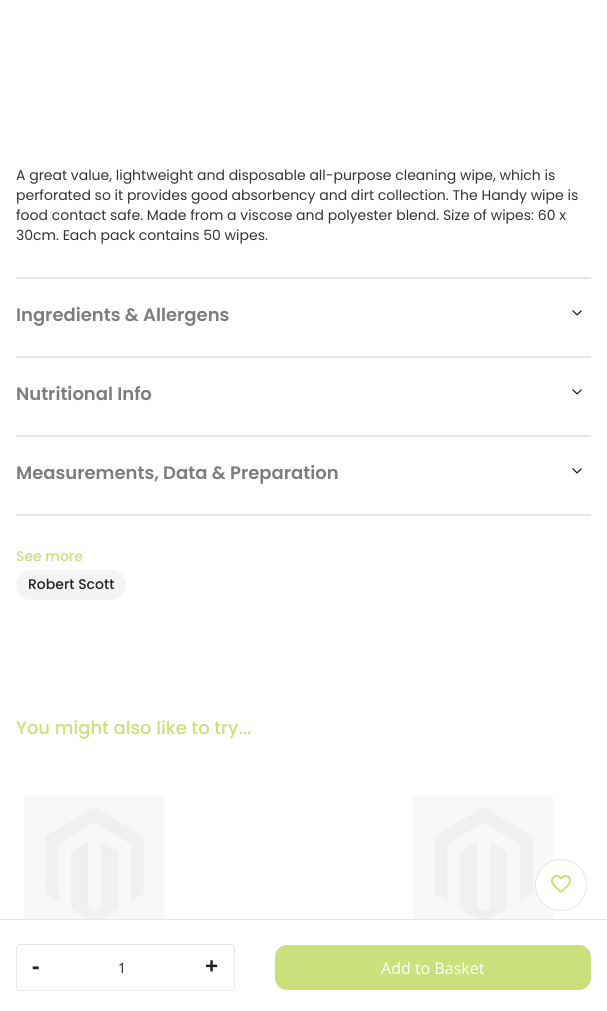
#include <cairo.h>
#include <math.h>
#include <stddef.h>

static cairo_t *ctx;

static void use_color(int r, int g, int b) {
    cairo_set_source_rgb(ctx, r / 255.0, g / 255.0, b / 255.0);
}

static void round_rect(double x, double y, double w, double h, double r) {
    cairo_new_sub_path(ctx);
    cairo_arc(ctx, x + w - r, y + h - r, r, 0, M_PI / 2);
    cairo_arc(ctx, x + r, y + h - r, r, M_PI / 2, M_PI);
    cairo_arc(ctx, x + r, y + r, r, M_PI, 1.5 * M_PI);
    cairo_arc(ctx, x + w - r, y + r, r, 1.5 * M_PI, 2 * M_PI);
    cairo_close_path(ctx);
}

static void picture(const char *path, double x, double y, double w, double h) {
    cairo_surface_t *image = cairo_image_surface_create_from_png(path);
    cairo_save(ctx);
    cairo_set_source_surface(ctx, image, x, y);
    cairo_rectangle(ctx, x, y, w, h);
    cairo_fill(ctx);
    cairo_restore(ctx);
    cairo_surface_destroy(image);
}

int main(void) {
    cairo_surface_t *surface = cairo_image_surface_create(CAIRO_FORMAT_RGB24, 607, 1011);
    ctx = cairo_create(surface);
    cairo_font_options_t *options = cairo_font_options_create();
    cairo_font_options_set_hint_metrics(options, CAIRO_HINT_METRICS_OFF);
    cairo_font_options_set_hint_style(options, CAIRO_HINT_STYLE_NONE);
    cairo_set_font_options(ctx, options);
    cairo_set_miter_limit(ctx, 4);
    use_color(255, 255, 255);
    cairo_paint(ctx);
    cairo_select_font_face(ctx, "Poppins", CAIRO_FONT_SLANT_NORMAL, CAIRO_FONT_WEIGHT_NORMAL);
    cairo_set_font_size(ctx, 14);
    use_color(51, 51, 51);
    cairo_move_to(ctx, 16, 180);
    cairo_show_text(ctx, "A great value, lightweight and disposable all-purpose cleaning wipe, which is");
    cairo_move_to(ctx, 16, 200);
    cairo_show_text(ctx, "perforated so it provides good absorbency and dirt collection. The Handy wipe is");
    cairo_move_to(ctx, 16, 220);
    cairo_show_text(ctx, "food contact safe. Made from a viscose and polyester blend. Size of wipes: 60 x");
    cairo_move_to(ctx, 16, 240);
    cairo_show_text(ctx, "30cm. Each pack contains 50 wipes.");
    use_color(231, 231, 231);
    cairo_rectangle(ctx, 16, 514, 575, 2);
    cairo_fill(ctx);
    cairo_rectangle(ctx, 16, 277, 575, 2);
    cairo_fill(ctx);
    cairo_select_font_face(ctx, "Poppins SemiBold", CAIRO_FONT_SLANT_NORMAL, CAIRO_FONT_WEIGHT_NORMAL);
    cairo_set_font_size(ctx, 18);
    use_color(125, 125, 125);
    cairo_move_to(ctx, 16, 321);
    cairo_show_text(ctx, "Ingredients & Allergens");
    picture("img1.png", 572, 310, 10, 6);
    use_color(231, 231, 231);
    cairo_rectangle(ctx, 16, 356, 575, 2);
    cairo_fill(ctx);
    use_color(125, 125, 125);
    cairo_move_to(ctx, 16, 400);
    cairo_show_text(ctx, "Nutritional Info");
    picture("img1.png", 572, 389, 10, 6);
    use_color(231, 231, 231);
    cairo_rectangle(ctx, 16, 435, 575, 2);
    cairo_fill(ctx);
    use_color(125, 125, 125);
    cairo_move_to(ctx, 16, 479);
    cairo_show_text(ctx, "Measurements, Data & Preparation");
    picture("img1.png", 572, 468, 10, 6);
    cairo_select_font_face(ctx, "Poppins Medium", CAIRO_FONT_SLANT_NORMAL, CAIRO_FONT_WEIGHT_NORMAL);
    cairo_set_font_size(ctx, 14);
    use_color(202, 224, 124);
    cairo_move_to(ctx, 16, 561);
    cairo_show_text(ctx, "See more");
    use_color(244, 244, 244);
    round_rect(16, 570, 110, 30, 15);
    cairo_fill(ctx);
    use_color(34, 34, 34);
    cairo_move_to(ctx, 28, 589);
    cairo_show_text(ctx, "Robert Scott");
    use_color(231, 231, 231);
    cairo_rectangle(ctx, 0, 919, 607, 1);
    cairo_fill(ctx);
    picture("img3.png", 413, 796, 140, 123);
    use_color(255, 255, 255);
    cairo_arc(ctx, 561, 885, 25.5, 0, 2 * M_PI);
    cairo_fill_preserve(ctx);
    use_color(231, 231, 231);
    cairo_set_line_width(ctx, 1);
    cairo_stroke(ctx);
    picture("img2.png", 551, 875, 20, 18);
    round_rect(16.5, 944.5, 218, 46, 3.5);
    cairo_stroke(ctx);
    cairo_select_font_face(ctx, "Open Sans", CAIRO_FONT_SLANT_NORMAL, CAIRO_FONT_WEIGHT_BOLD);
    cairo_set_font_size(ctx, 23);
    use_color(34, 34, 34);
    cairo_move_to(ctx, 32, 974);
    cairo_show_text(ctx, "-");
    cairo_select_font_face(ctx, "Open Sans", CAIRO_FONT_SLANT_NORMAL, CAIRO_FONT_WEIGHT_NORMAL);
    cairo_set_font_size(ctx, 14);
    cairo_move_to(ctx, 118, 973);
    cairo_show_text(ctx, "1");
    cairo_select_font_face(ctx, "Open Sans", CAIRO_FONT_SLANT_NORMAL, CAIRO_FONT_WEIGHT_BOLD);
    cairo_set_font_size(ctx, 23);
    cairo_move_to(ctx, 205, 974);
    cairo_show_text(ctx, "+");
    use_color(202, 224, 124);
    round_rect(275, 945, 316, 45, 12);
    cairo_fill(ctx);
    cairo_select_font_face(ctx, "Open Sans", CAIRO_FONT_SLANT_NORMAL, CAIRO_FONT_WEIGHT_NORMAL);
    cairo_set_font_size(ctx, 16);
    use_color(255, 255, 255);
    cairo_move_to(ctx, 381, 974);
    cairo_show_text(ctx, "Add to Basket");
    cairo_select_font_face(ctx, "Poppins Medium", CAIRO_FONT_SLANT_NORMAL, CAIRO_FONT_WEIGHT_NORMAL);
    cairo_set_font_size(ctx, 18);
    use_color(202, 224, 124);
    cairo_move_to(ctx, 16, 734);
    cairo_show_text(ctx, "You might also like to try...");
    picture("img3.png", 24, 796, 140, 123);
    cairo_surface_write_to_png(surface, "result.png");
    cairo_font_options_destroy(options);
    cairo_destroy(ctx);
    cairo_surface_destroy(surface);
    return 0;
}
